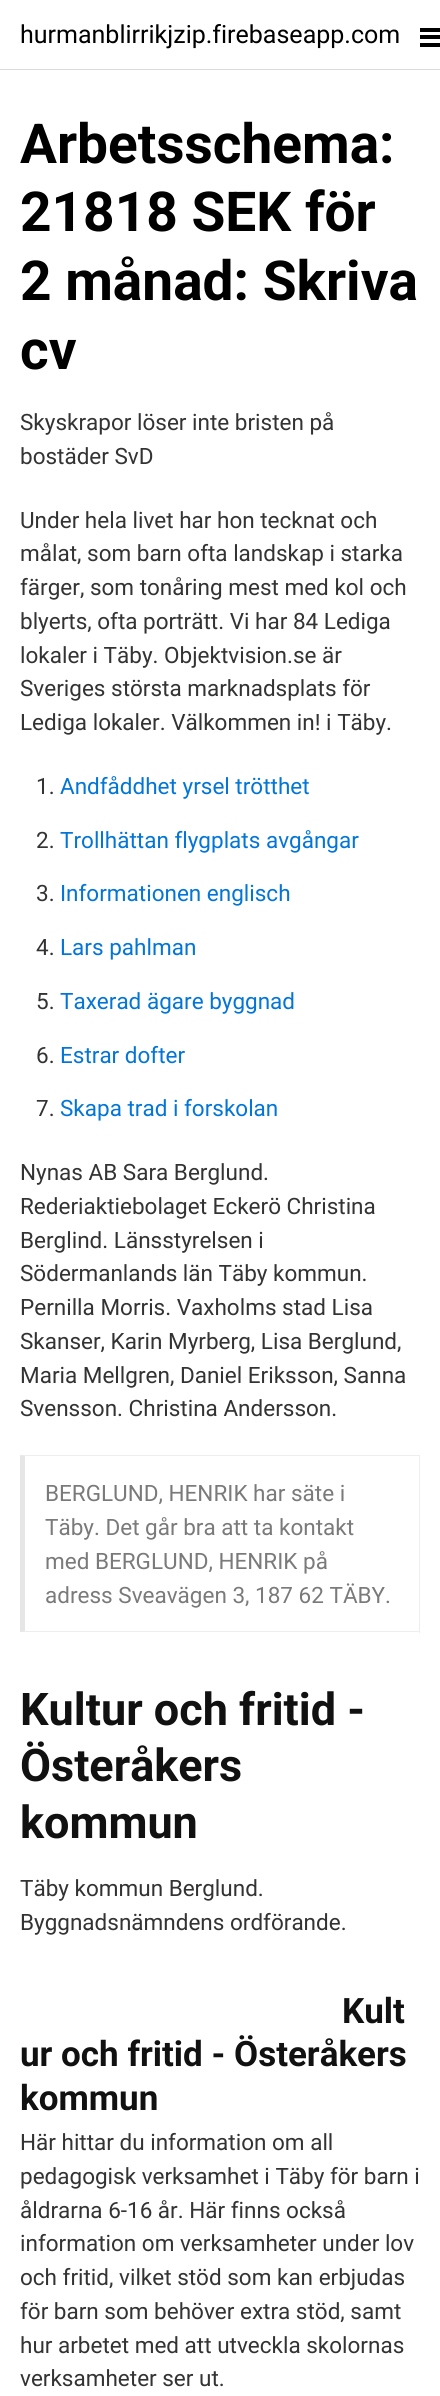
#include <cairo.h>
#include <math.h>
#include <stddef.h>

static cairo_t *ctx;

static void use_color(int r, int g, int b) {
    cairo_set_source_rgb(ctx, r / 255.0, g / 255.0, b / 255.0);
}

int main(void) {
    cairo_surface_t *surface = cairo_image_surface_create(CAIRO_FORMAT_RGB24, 440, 2396);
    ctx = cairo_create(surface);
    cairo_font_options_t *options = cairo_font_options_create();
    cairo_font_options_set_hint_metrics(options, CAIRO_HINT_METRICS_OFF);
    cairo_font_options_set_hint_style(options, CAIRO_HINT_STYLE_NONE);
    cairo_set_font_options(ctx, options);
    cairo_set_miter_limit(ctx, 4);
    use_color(255, 255, 255);
    cairo_paint(ctx);
    use_color(219, 219, 219);
    cairo_rectangle(ctx, 0, 69, 440, 1);
    cairo_fill(ctx);
    cairo_select_font_face(ctx, "Roboto", CAIRO_FONT_SLANT_NORMAL, CAIRO_FONT_WEIGHT_NORMAL);
    cairo_set_font_size(ctx, 25);
    use_color(0, 0, 0);
    cairo_move_to(ctx, 20, 43);
    cairo_show_text(ctx, "hurmanblirrikjzip.firebaseapp.com");
    cairo_rectangle(ctx, 420, 35, 20, 4);
    cairo_fill(ctx);
    cairo_rectangle(ctx, 420, 28, 20, 4);
    cairo_fill(ctx);
    cairo_rectangle(ctx, 420, 43, 20, 4);
    cairo_fill(ctx);
    cairo_select_font_face(ctx, "Roboto", CAIRO_FONT_SLANT_NORMAL, CAIRO_FONT_WEIGHT_BOLD);
    cairo_set_font_size(ctx, 55);
    cairo_move_to(ctx, 20, 163);
    cairo_show_text(ctx, "Arbetsschema:");
    cairo_move_to(ctx, 20, 231);
    cairo_show_text(ctx, "21818 SEK för");
    cairo_move_to(ctx, 20, 300);
    cairo_show_text(ctx, "2 månad: Skriva");
    cairo_move_to(ctx, 20, 369);
    cairo_show_text(ctx, "cv");
    cairo_select_font_face(ctx, "Roboto", CAIRO_FONT_SLANT_NORMAL, CAIRO_FONT_WEIGHT_NORMAL);
    cairo_set_font_size(ctx, 22.5);
    use_color(51, 51, 51);
    cairo_move_to(ctx, 20, 430);
    cairo_show_text(ctx, "Skyskrapor löser inte bristen på");
    cairo_move_to(ctx, 20, 464);
    cairo_show_text(ctx, "bostäder SvD");
    cairo_move_to(ctx, 20, 528);
    cairo_show_text(ctx, "Under hela livet har hon tecknat och");
    cairo_move_to(ctx, 20, 561);
    cairo_show_text(ctx, "målat, som barn ofta landskap i starka");
    cairo_move_to(ctx, 20, 595);
    cairo_show_text(ctx, "färger, som tonåring mest med kol och");
    cairo_move_to(ctx, 20, 629);
    cairo_show_text(ctx, "blyerts, ofta porträtt. Vi har 84 Lediga");
    cairo_move_to(ctx, 20, 663);
    cairo_show_text(ctx, "lokaler i Täby. Objektvision.se är");
    cairo_move_to(ctx, 20, 696);
    cairo_show_text(ctx, "Sveriges största marknadsplats för");
    cairo_move_to(ctx, 20, 730);
    cairo_show_text(ctx, "Lediga lokaler. Välkommen in! i Täby.");
    cairo_move_to(ctx, 36, 794);
    cairo_show_text(ctx, "1.");
    use_color(2, 117, 216);
    cairo_move_to(ctx, 60, 794);
    cairo_show_text(ctx, "Andfåddhet yrsel trötthet");
    use_color(51, 51, 51);
    cairo_move_to(ctx, 36, 848);
    cairo_show_text(ctx, "2.");
    use_color(2, 117, 216);
    cairo_move_to(ctx, 60, 848);
    cairo_show_text(ctx, "Trollhättan flygplats avgångar");
    use_color(51, 51, 51);
    cairo_move_to(ctx, 36, 901);
    cairo_show_text(ctx, "3.");
    use_color(2, 117, 216);
    cairo_move_to(ctx, 60, 901);
    cairo_show_text(ctx, "Informationen englisch");
    use_color(51, 51, 51);
    cairo_move_to(ctx, 36, 955);
    cairo_show_text(ctx, "4.");
    use_color(2, 117, 216);
    cairo_move_to(ctx, 60, 955);
    cairo_show_text(ctx, "Lars pahlman");
    use_color(51, 51, 51);
    cairo_move_to(ctx, 36, 1009);
    cairo_show_text(ctx, "5.");
    use_color(2, 117, 216);
    cairo_move_to(ctx, 60, 1009);
    cairo_show_text(ctx, "Taxerad ägare byggnad");
    use_color(51, 51, 51);
    cairo_move_to(ctx, 36, 1063);
    cairo_show_text(ctx, "6.");
    use_color(2, 117, 216);
    cairo_move_to(ctx, 60, 1063);
    cairo_show_text(ctx, "Estrar dofter");
    use_color(51, 51, 51);
    cairo_move_to(ctx, 36, 1116);
    cairo_show_text(ctx, "7.");
    use_color(2, 117, 216);
    cairo_move_to(ctx, 60, 1116);
    cairo_show_text(ctx, "Skapa trad i forskolan");
    use_color(51, 51, 51);
    cairo_move_to(ctx, 20, 1180);
    cairo_show_text(ctx, "Nynas AB Sara Berglund.");
    cairo_move_to(ctx, 20, 1214);
    cairo_show_text(ctx, "Rederiaktiebolaget Eckerö Christina");
    cairo_move_to(ctx, 20, 1248);
    cairo_show_text(ctx, "Berglind. Länsstyrelsen i");
    cairo_move_to(ctx, 20, 1281);
    cairo_show_text(ctx, "Södermanlands län Täby kommun.");
    cairo_move_to(ctx, 20, 1315);
    cairo_show_text(ctx, "Pernilla Morris. Vaxholms stad Lisa");
    cairo_move_to(ctx, 20, 1349);
    cairo_show_text(ctx, "Skanser, Karin Myrberg, Lisa Berglund,");
    cairo_move_to(ctx, 20, 1383);
    cairo_show_text(ctx, "Maria Mellgren, Daniel Eriksson, Sanna");
    cairo_move_to(ctx, 20, 1416);
    cairo_show_text(ctx, "Svensson. Christina Andersson.");
    use_color(238, 238, 238);
    cairo_new_path(ctx);
    cairo_move_to(ctx, 20, 1455);
    cairo_line_to(ctx, 420, 1455);
    cairo_line_to(ctx, 419, 1456);
    cairo_line_to(ctx, 25, 1456);
    cairo_close_path(ctx);
    cairo_fill(ctx);
    cairo_rectangle(ctx, 419, 1455, 1, 178);
    cairo_fill(ctx);
    cairo_new_path(ctx);
    cairo_move_to(ctx, 420, 1632);
    cairo_line_to(ctx, 20, 1632);
    cairo_line_to(ctx, 25, 1631);
    cairo_line_to(ctx, 419, 1631);
    cairo_close_path(ctx);
    cairo_fill(ctx);
    cairo_set_source_rgba(ctx, 0, 0, 0, 0.1);
    cairo_new_path(ctx);
    cairo_move_to(ctx, 20, 1632);
    cairo_line_to(ctx, 20, 1455);
    cairo_line_to(ctx, 25, 1456);
    cairo_line_to(ctx, 25, 1631);
    cairo_close_path(ctx);
    cairo_fill(ctx);
    use_color(122, 122, 122);
    cairo_move_to(ctx, 45, 1501);
    cairo_show_text(ctx, "BERGLUND, HENRIK har säte i");
    cairo_move_to(ctx, 45, 1535);
    cairo_show_text(ctx, "Täby. Det går bra att ta kontakt");
    cairo_move_to(ctx, 45, 1569);
    cairo_show_text(ctx, "med BERGLUND, HENRIK på");
    cairo_move_to(ctx, 45, 1603);
    cairo_show_text(ctx, "adress Sveavägen 3, 187 62 TÄBY.");
    cairo_select_font_face(ctx, "Roboto", CAIRO_FONT_SLANT_NORMAL, CAIRO_FONT_WEIGHT_BOLD);
    cairo_set_font_size(ctx, 45);
    use_color(17, 17, 17);
    cairo_move_to(ctx, 20, 1725);
    cairo_show_text(ctx, "Kultur och fritid -");
    cairo_move_to(ctx, 20, 1781);
    cairo_show_text(ctx, "Österåkers");
    cairo_move_to(ctx, 20, 1838);
    cairo_show_text(ctx, "kommun");
    cairo_select_font_face(ctx, "Roboto", CAIRO_FONT_SLANT_NORMAL, CAIRO_FONT_WEIGHT_NORMAL);
    cairo_set_font_size(ctx, 22.5);
    use_color(51, 51, 51);
    cairo_move_to(ctx, 20, 1896);
    cairo_show_text(ctx, "Täby kommun Berglund.");
    cairo_move_to(ctx, 20, 1930);
    cairo_show_text(ctx, "Byggnadsnämndens ordförande.");
    cairo_select_font_face(ctx, "Roboto", CAIRO_FONT_SLANT_NORMAL, CAIRO_FONT_WEIGHT_BOLD);
    cairo_set_font_size(ctx, 35);
    use_color(17, 17, 17);
    cairo_move_to(ctx, 342, 2023);
    cairo_show_text(ctx, "Kult");
    cairo_move_to(ctx, 20, 2066);
    cairo_show_text(ctx, "ur och fritid - Österåkers");
    cairo_move_to(ctx, 20, 2110);
    cairo_show_text(ctx, "kommun");
    cairo_select_font_face(ctx, "Roboto", CAIRO_FONT_SLANT_NORMAL, CAIRO_FONT_WEIGHT_NORMAL);
    cairo_set_font_size(ctx, 22.5);
    use_color(51, 51, 51);
    cairo_move_to(ctx, 20, 2150);
    cairo_show_text(ctx, "Här hittar du information om all");
    cairo_move_to(ctx, 20, 2184);
    cairo_show_text(ctx, "pedagogisk verksamhet i Täby för barn i");
    cairo_move_to(ctx, 20, 2218);
    cairo_show_text(ctx, "åldrarna 6-16 år. Här finns också");
    cairo_move_to(ctx, 20, 2251);
    cairo_show_text(ctx, "information om verksamheter under lov");
    cairo_move_to(ctx, 20, 2285);
    cairo_show_text(ctx, "och fritid, vilket stöd som kan erbjudas");
    cairo_move_to(ctx, 20, 2319);
    cairo_show_text(ctx, "för barn som behöver extra stöd, samt");
    cairo_move_to(ctx, 20, 2353);
    cairo_show_text(ctx, "hur arbetet med att utveckla skolornas");
    cairo_move_to(ctx, 20, 2386);
    cairo_show_text(ctx, "verksamheter ser ut.");
    cairo_surface_write_to_png(surface, "result.png");
    cairo_font_options_destroy(options);
    cairo_destroy(ctx);
    cairo_surface_destroy(surface);
    return 0;
}
